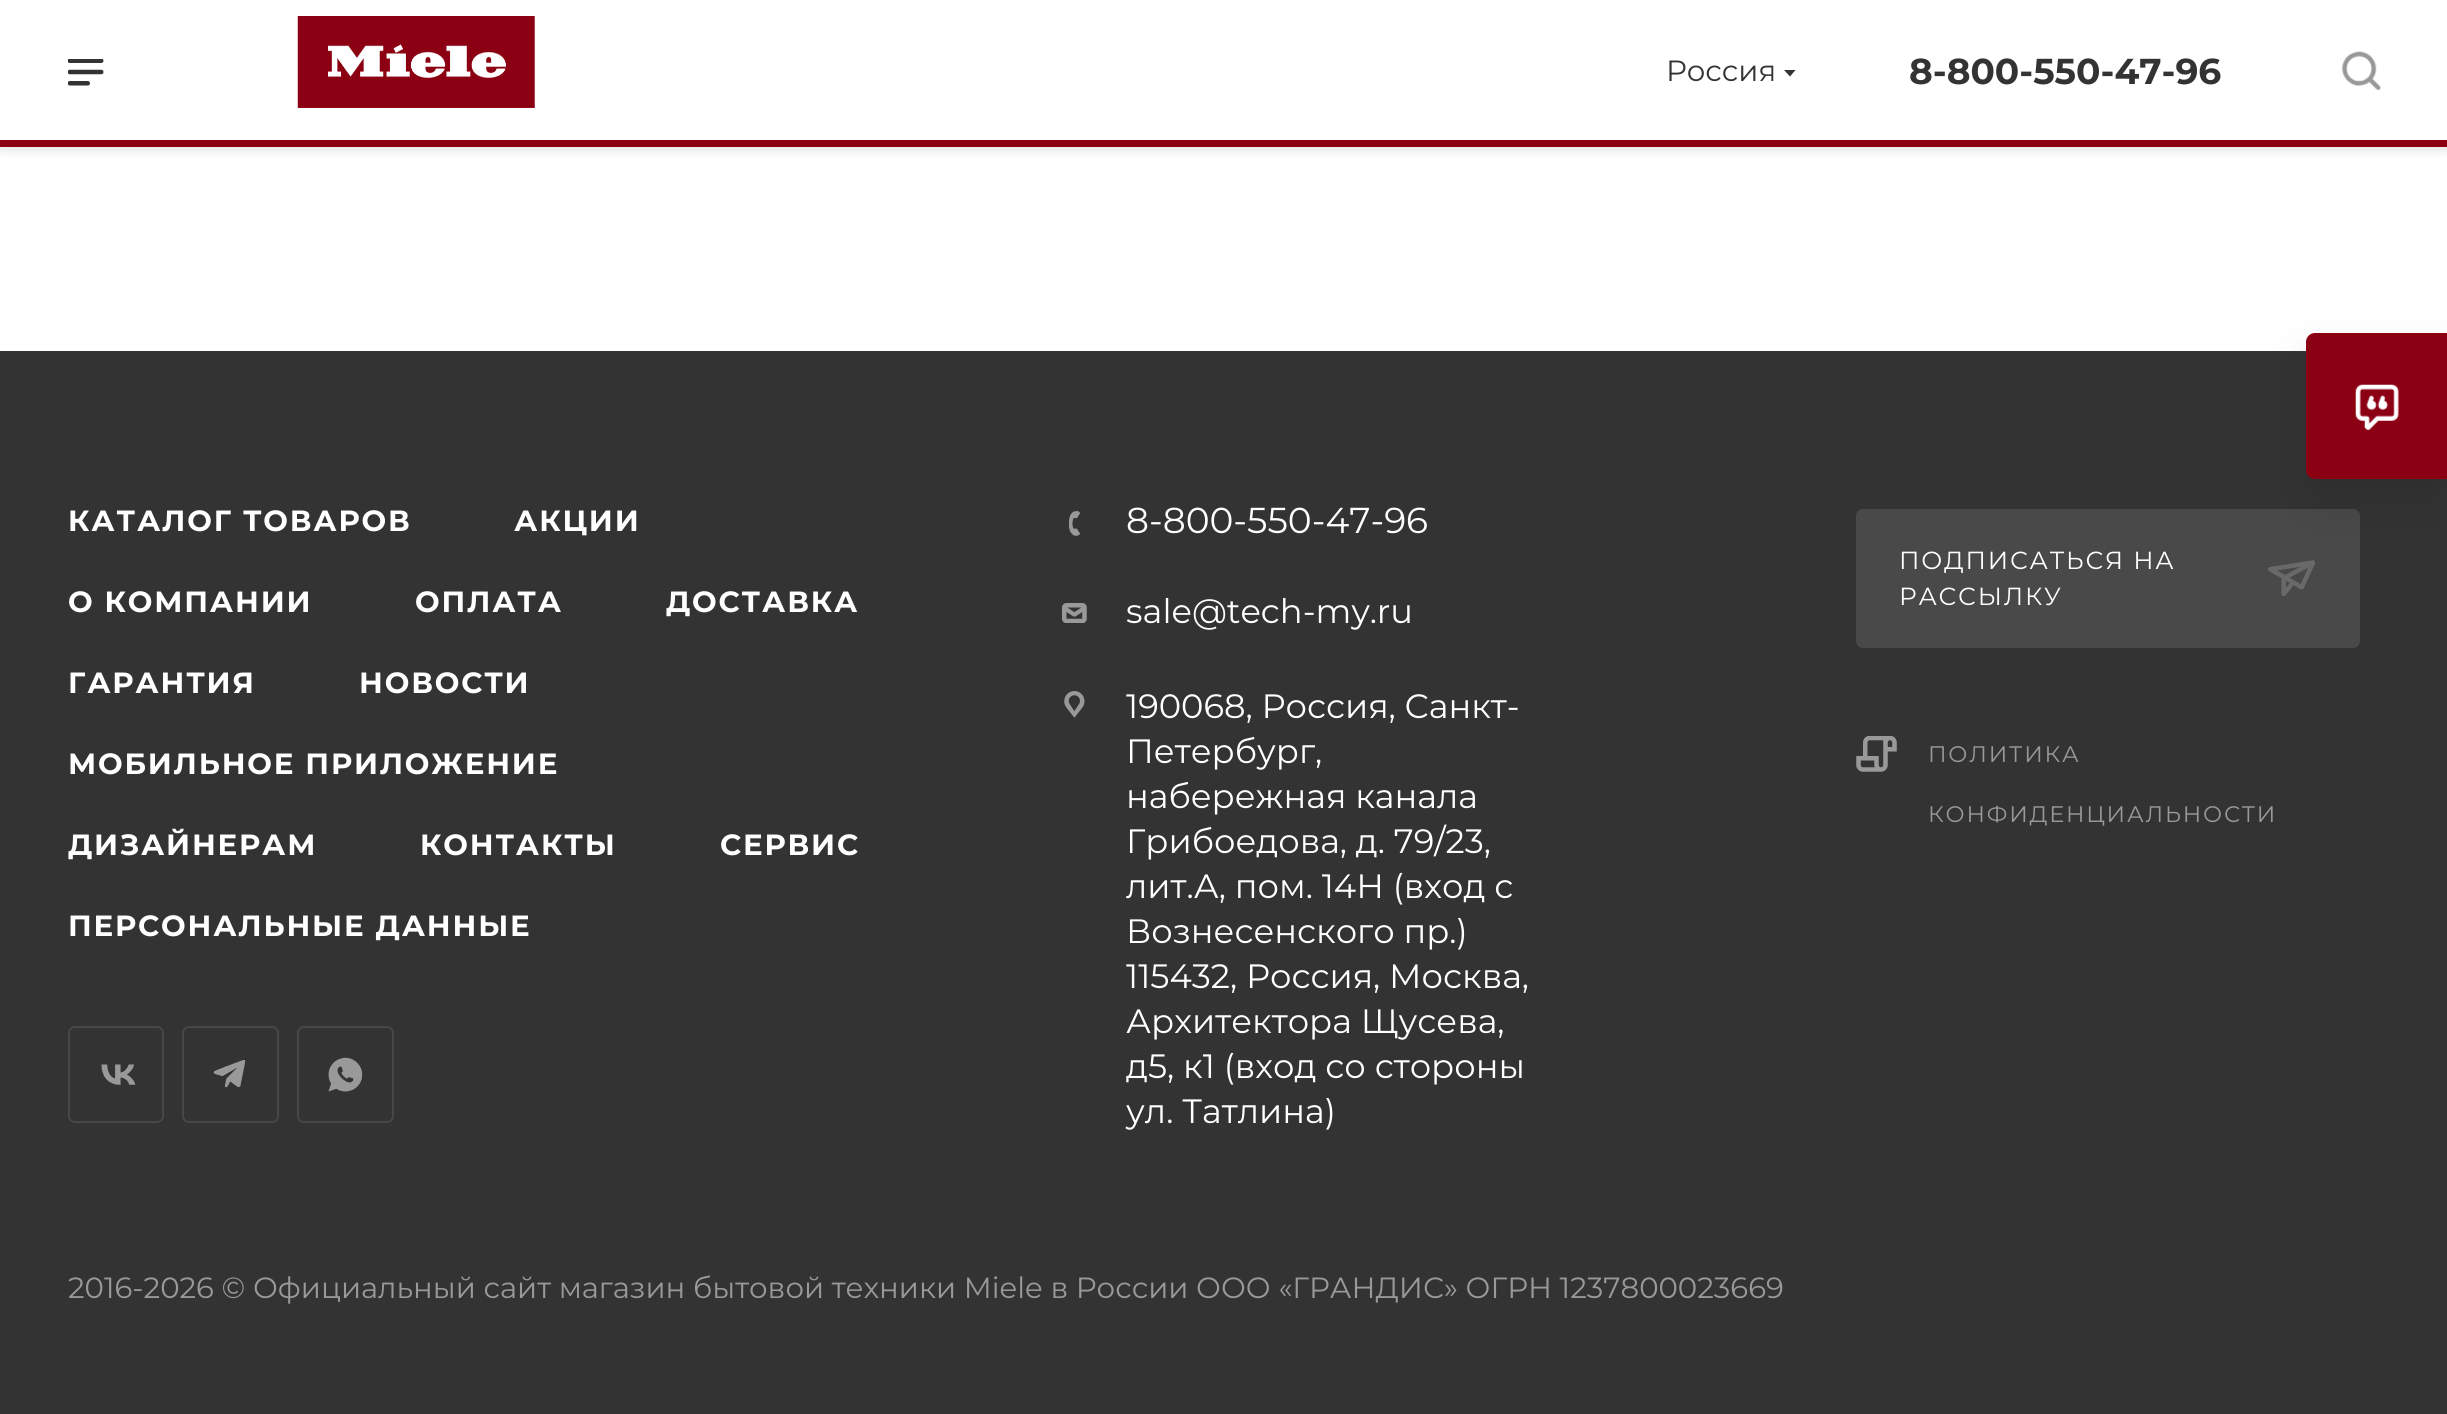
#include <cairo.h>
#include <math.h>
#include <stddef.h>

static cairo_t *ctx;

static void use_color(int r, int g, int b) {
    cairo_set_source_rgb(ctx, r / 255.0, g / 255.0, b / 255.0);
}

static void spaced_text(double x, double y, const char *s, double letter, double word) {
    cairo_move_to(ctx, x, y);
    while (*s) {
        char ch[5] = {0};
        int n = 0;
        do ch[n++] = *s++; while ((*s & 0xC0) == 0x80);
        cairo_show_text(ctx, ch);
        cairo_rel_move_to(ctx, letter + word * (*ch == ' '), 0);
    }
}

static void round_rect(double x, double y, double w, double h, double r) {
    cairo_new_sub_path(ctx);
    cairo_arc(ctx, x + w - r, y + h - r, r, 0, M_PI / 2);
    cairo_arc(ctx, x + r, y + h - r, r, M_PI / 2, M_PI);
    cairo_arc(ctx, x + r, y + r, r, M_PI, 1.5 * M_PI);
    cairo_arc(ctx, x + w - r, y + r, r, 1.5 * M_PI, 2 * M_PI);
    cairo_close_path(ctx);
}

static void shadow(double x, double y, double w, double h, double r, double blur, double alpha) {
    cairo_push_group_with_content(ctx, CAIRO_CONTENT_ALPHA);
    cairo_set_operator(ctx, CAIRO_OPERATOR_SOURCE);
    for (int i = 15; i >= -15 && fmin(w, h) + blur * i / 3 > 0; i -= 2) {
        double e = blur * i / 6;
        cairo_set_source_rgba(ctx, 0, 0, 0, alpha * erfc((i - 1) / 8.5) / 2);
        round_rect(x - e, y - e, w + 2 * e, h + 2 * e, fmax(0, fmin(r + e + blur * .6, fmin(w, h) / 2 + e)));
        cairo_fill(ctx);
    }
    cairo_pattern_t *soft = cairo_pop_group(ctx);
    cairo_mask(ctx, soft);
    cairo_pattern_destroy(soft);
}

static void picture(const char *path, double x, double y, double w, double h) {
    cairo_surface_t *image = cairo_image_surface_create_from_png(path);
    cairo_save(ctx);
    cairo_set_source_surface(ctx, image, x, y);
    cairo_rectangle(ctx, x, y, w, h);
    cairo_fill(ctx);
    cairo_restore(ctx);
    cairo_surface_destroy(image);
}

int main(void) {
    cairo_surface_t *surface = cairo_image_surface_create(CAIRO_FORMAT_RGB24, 2447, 1414);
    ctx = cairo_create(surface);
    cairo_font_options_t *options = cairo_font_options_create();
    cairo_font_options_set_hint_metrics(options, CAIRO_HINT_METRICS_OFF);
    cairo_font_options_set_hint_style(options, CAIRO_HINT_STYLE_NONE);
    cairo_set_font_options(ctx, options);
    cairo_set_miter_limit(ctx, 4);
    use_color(255, 255, 255);
    cairo_paint(ctx);
    use_color(0, 0, 0);
    shadow(0, 2, 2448, 147, 0, 5.5, 0.14);
    use_color(255, 255, 255);
    cairo_rectangle(ctx, 0, 0, 2447, 140);
    cairo_fill(ctx);
    picture("img1.png", 68, 59, 36, 27);
    picture("img2.png", 297, 16, 238, 92);
    cairo_select_font_face(ctx, "Montserrat", CAIRO_FONT_SLANT_NORMAL, CAIRO_FONT_WEIGHT_NORMAL);
    cairo_set_font_size(ctx, 29.25);
    use_color(51, 51, 51);
    cairo_move_to(ctx, 1666, 81);
    cairo_show_text(ctx, "Россия");
    cairo_set_fill_rule(ctx, CAIRO_FILL_RULE_EVEN_ODD);
    cairo_new_path(ctx);
    cairo_move_to(ctx, 1784, 70);
    cairo_line_to(ctx, 1795.5, 70);
    cairo_line_to(ctx, 1790, 76.5);
    cairo_close_path(ctx);
    cairo_fill(ctx);
    cairo_select_font_face(ctx, "Montserrat", CAIRO_FONT_SLANT_NORMAL, CAIRO_FONT_WEIGHT_BOLD);
    cairo_set_font_size(ctx, 36);
    cairo_move_to(ctx, 1909, 84);
    cairo_show_text(ctx, "8-800-550-47-96");
    picture("img3.png", 2342, 51, 39, 39);
    use_color(140, 0, 20);
    cairo_rectangle(ctx, 0, 140, 2447, 7);
    cairo_fill(ctx);
    use_color(51, 51, 51);
    cairo_rectangle(ctx, 0, 351, 2447, 1063);
    cairo_fill(ctx);
    use_color(73, 73, 73);
    round_rect(1857, 510, 502, 137, 6);
    cairo_fill_preserve(ctx);
    cairo_stroke(ctx);
    picture("img11.png", 2268, 560, 47, 36);
    use_color(0, 0, 0);
    shadow(2306, 356, 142, 146, 9, 22.5, 0.1);
    use_color(140, 0, 20);
    cairo_new_path(ctx);
    cairo_move_to(ctx, 2315, 333);
    cairo_line_to(ctx, 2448, 333);
    cairo_line_to(ctx, 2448, 479);
    cairo_line_to(ctx, 2315, 479);
    cairo_curve_to(ctx, 2310, 479, 2306, 475, 2306, 470);
    cairo_line_to(ctx, 2306, 342);
    cairo_curve_to(ctx, 2306, 337, 2310, 333, 2315, 333);
    cairo_close_path(ctx);
    cairo_fill(ctx);
    picture("img4.png", 2355, 384, 44, 46);
    cairo_set_font_size(ctx, 29.25);
    use_color(255, 255, 255);
    spaced_text(68, 531, "КАТАЛОГ ТОВАРОВ", 1.8, 0);
    spaced_text(514, 531, "АКЦИИ", 1.8, 0);
    spaced_text(68, 612, "О КОМПАНИИ", 1.8, 0);
    spaced_text(415, 612, "ОПЛАТА", 1.8, 0);
    spaced_text(666, 612, "ДОСТАВКА", 1.8, 0);
    spaced_text(68, 693, "ГАРАНТИЯ", 1.8, 0);
    spaced_text(359, 693, "НОВОСТИ", 1.8, 0);
    spaced_text(68, 774, "МОБИЛЬНОЕ ПРИЛОЖЕНИЕ", 1.8, 0);
    spaced_text(68, 855, "ДИЗАЙНЕРАМ", 1.8, 0);
    spaced_text(420, 855, "КОНТАКТЫ", 1.8, 0);
    spaced_text(720, 855, "СЕРВИС", 1.8, 0);
    spaced_text(68, 936, "ПЕРСОНАЛЬНЫЕ ДАННЫЕ", 1.8, 0);
    picture("img5.png", 101, 1064, 35, 21);
    round_rect(69, 1027, 94, 95, 6);
    use_color(71, 71, 71);
    cairo_stroke(ctx);
    picture("img6.png", 213, 1060, 33, 28);
    round_rect(183, 1027, 95, 95, 6);
    cairo_stroke(ctx);
    picture("img7.png", 328, 1057, 35, 35);
    round_rect(298, 1027, 95, 95, 6);
    cairo_stroke(ctx);
    picture("img8.png", 1069, 511, 11, 25);
    cairo_select_font_face(ctx, "Montserrat", CAIRO_FONT_SLANT_NORMAL, CAIRO_FONT_WEIGHT_NORMAL);
    cairo_set_font_size(ctx, 36);
    use_color(255, 255, 255);
    cairo_move_to(ctx, 1126, 533);
    cairo_show_text(ctx, "8-800-550-47-96");
    picture("img9.png", 1062, 603, 25, 20);
    cairo_set_font_size(ctx, 33.75);
    cairo_move_to(ctx, 1126, 623);
    cairo_show_text(ctx, "sale@tech-my.ru");
    picture("img10.png", 1064, 691, 21, 27);
    cairo_move_to(ctx, 1126, 718);
    cairo_show_text(ctx, "190068, Россия, Санкт-");
    cairo_move_to(ctx, 1126, 763);
    cairo_show_text(ctx, "Петербург,");
    cairo_move_to(ctx, 1126, 808);
    cairo_show_text(ctx, "набережная канала");
    cairo_move_to(ctx, 1126, 853);
    cairo_show_text(ctx, "Грибоедова, д. 79/23,");
    cairo_move_to(ctx, 1126, 898);
    cairo_show_text(ctx, "лит.А, пом. 14Н (вход с");
    cairo_move_to(ctx, 1126, 943);
    cairo_show_text(ctx, "Вознесенского пр.)");
    cairo_move_to(ctx, 1126, 988);
    cairo_show_text(ctx, "115432, Россия, Москва,");
    cairo_move_to(ctx, 1126, 1033);
    cairo_show_text(ctx, "Архитектора Щусева,");
    cairo_move_to(ctx, 1126, 1078);
    cairo_show_text(ctx, "д5, к1 (вход со стороны");
    cairo_move_to(ctx, 1126, 1123);
    cairo_show_text(ctx, "ул. Татлина)");
    cairo_set_font_size(ctx, 24.75);
    spaced_text(1899, 569, "ПОДПИСАТЬСЯ НА", 1.8, 0);
    spaced_text(1899, 605, "РАССЫЛКУ", 1.8, 0);
    picture("img12.png", 1856, 736, 41, 36);
    cairo_set_font_size(ctx, 22.5);
    use_color(153, 153, 153);
    spaced_text(1928, 762, "ПОЛИТИКА", 1.8, 0);
    spaced_text(1928, 822, "КОНФИДЕНЦИАЛЬНОСТИ", 1.8, 0);
    cairo_set_font_size(ctx, 29.25);
    cairo_move_to(ctx, 68, 1298);
    cairo_show_text(ctx, "2016-2026 © Официальный сайт магазин бытовой техники Miele в России ООО «ГРАНДИС» ОГРН 1237800023669");
    cairo_surface_write_to_png(surface, "result.png");
    cairo_font_options_destroy(options);
    cairo_destroy(ctx);
    cairo_surface_destroy(surface);
    return 0;
}
